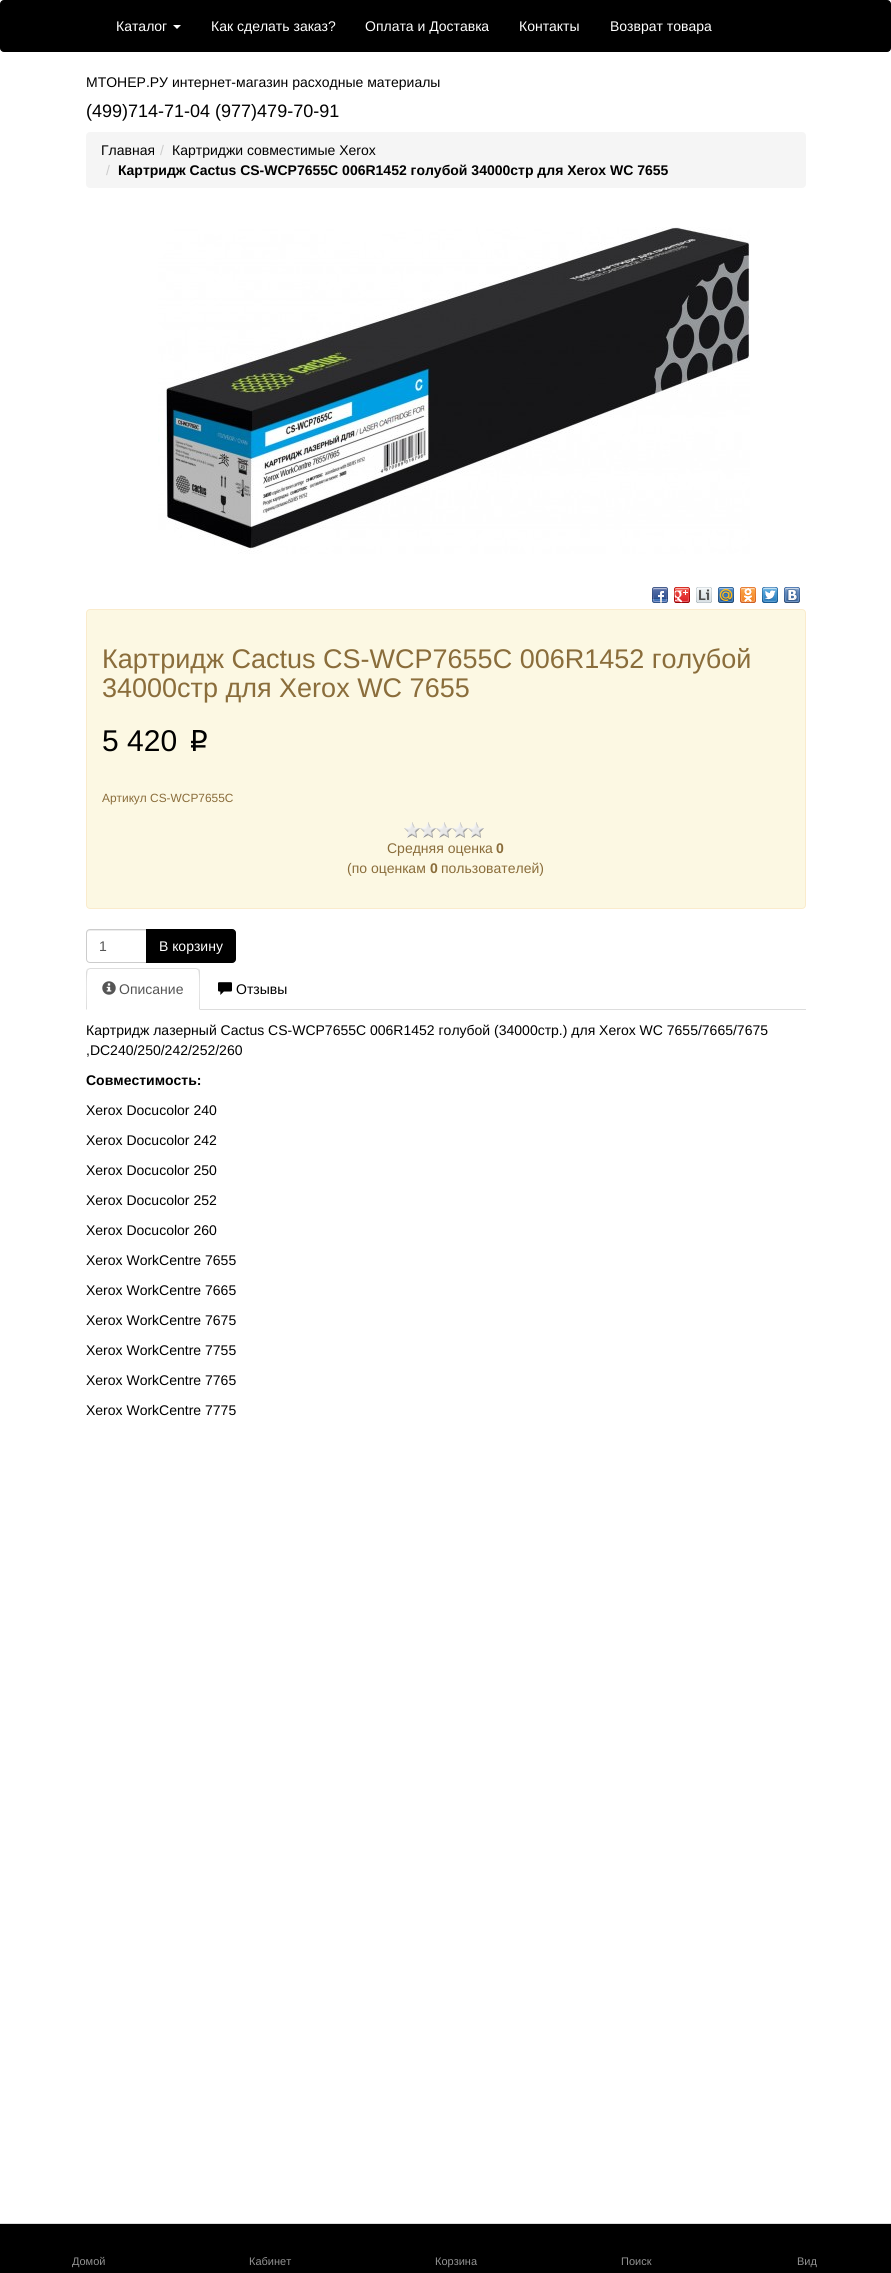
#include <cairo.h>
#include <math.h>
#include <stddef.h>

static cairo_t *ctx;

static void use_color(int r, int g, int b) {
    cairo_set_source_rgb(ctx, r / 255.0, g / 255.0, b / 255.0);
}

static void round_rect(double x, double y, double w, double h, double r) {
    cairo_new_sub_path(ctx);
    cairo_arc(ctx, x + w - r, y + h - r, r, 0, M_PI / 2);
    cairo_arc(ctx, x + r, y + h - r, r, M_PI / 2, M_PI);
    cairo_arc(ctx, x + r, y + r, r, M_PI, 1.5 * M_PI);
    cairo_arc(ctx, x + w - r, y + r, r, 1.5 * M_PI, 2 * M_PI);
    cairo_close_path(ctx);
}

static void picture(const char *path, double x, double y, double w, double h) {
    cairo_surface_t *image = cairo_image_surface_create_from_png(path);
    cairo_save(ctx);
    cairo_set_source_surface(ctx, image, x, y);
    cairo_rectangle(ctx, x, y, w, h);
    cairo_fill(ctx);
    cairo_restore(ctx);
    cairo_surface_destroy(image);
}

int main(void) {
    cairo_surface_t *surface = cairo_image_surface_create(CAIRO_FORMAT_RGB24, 891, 2273);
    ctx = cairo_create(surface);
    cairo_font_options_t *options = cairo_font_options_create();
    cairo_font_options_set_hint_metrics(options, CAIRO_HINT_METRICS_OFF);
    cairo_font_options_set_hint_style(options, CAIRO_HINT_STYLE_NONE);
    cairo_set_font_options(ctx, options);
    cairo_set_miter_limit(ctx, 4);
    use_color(255, 255, 255);
    cairo_paint(ctx);
    use_color(0, 0, 0);
    round_rect(0.5, 0.5, 890, 51, 3.5);
    cairo_fill_preserve(ctx);
    cairo_set_line_width(ctx, 1);
    cairo_stroke(ctx);
    cairo_select_font_face(ctx, "Liberation Sans", CAIRO_FONT_SLANT_NORMAL, CAIRO_FONT_WEIGHT_NORMAL);
    cairo_set_font_size(ctx, 14);
    use_color(255, 255, 255);
    cairo_move_to(ctx, 116, 31);
    cairo_show_text(ctx, "Каталог");
    cairo_new_path(ctx);
    cairo_move_to(ctx, 173, 25);
    cairo_line_to(ctx, 181, 25);
    cairo_line_to(ctx, 177, 29);
    cairo_close_path(ctx);
    cairo_fill(ctx);
    cairo_move_to(ctx, 211, 31);
    cairo_show_text(ctx, "Как сделать заказ?");
    cairo_move_to(ctx, 365, 31);
    cairo_show_text(ctx, "Оплата и Доставка");
    cairo_move_to(ctx, 519, 31);
    cairo_show_text(ctx, "Контакты");
    cairo_move_to(ctx, 610, 31);
    cairo_show_text(ctx, "Возврат товара");
    use_color(0, 0, 0);
    cairo_move_to(ctx, 86, 87);
    cairo_show_text(ctx, "МТОНЕР.РУ интернет-магазин расходные материалы");
    cairo_set_font_size(ctx, 18);
    cairo_move_to(ctx, 86, 117);
    cairo_show_text(ctx, "(499)714-71-04 (977)479-70-91");
    use_color(245, 245, 245);
    round_rect(86, 132, 720, 56, 4);
    cairo_fill(ctx);
    cairo_set_font_size(ctx, 14);
    use_color(0, 0, 0);
    cairo_move_to(ctx, 101, 155);
    cairo_show_text(ctx, "Главная");
    use_color(204, 204, 204);
    cairo_move_to(ctx, 160, 155);
    cairo_show_text(ctx, "/");
    use_color(0, 0, 0);
    cairo_move_to(ctx, 172, 155);
    cairo_show_text(ctx, "Картриджи совместимые Xerox");
    use_color(204, 204, 204);
    cairo_move_to(ctx, 106, 175);
    cairo_show_text(ctx, "/");
    cairo_select_font_face(ctx, "Liberation Sans", CAIRO_FONT_SLANT_NORMAL, CAIRO_FONT_WEIGHT_BOLD);
    use_color(0, 0, 0);
    cairo_move_to(ctx, 118, 175);
    cairo_show_text(ctx, "Картридж Cactus CS-WCP7655C 006R1452 голубой 34000стр для Xerox WC 7655");
    picture("img1.png", 158, 227, 592, 327);
    picture("img2.png", 652, 587, 16, 16);
    picture("img3.png", 674, 587, 16, 16);
    picture("img4.png", 696, 587, 16, 16);
    picture("img5.png", 718, 587, 16, 16);
    picture("img6.png", 740, 587, 16, 16);
    picture("img7.png", 762, 587, 16, 16);
    picture("img8.png", 784, 587, 16, 16);
    use_color(252, 248, 227);
    round_rect(86.5, 609.5, 719, 299, 3.5);
    cairo_fill_preserve(ctx);
    use_color(250, 235, 204);
    cairo_stroke(ctx);
    cairo_select_font_face(ctx, "Liberation Sans", CAIRO_FONT_SLANT_NORMAL, CAIRO_FONT_WEIGHT_NORMAL);
    cairo_set_font_size(ctx, 27);
    use_color(138, 109, 59);
    cairo_move_to(ctx, 102, 668);
    cairo_show_text(ctx, "Картридж Cactus CS-WCP7655C 006R1452 голубой");
    cairo_move_to(ctx, 102, 697);
    cairo_show_text(ctx, "34000стр для Xerox WC 7655");
    cairo_set_font_size(ctx, 30);
    use_color(0, 0, 0);
    cairo_move_to(ctx, 102, 751);
    cairo_show_text(ctx, "5 420");
    cairo_select_font_face(ctx, "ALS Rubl", CAIRO_FONT_SLANT_NORMAL, CAIRO_FONT_WEIGHT_NORMAL);
    cairo_move_to(ctx, 185, 751);
    cairo_show_text(ctx, "p");
    cairo_select_font_face(ctx, "Liberation Sans", CAIRO_FONT_SLANT_NORMAL, CAIRO_FONT_WEIGHT_NORMAL);
    cairo_set_font_size(ctx, 11.9);
    use_color(138, 109, 59);
    cairo_move_to(ctx, 102, 802);
    cairo_show_text(ctx, "Артикул CS-WCP7655C");
    picture("img9.png", 404, 822, 80, 16);
    cairo_set_font_size(ctx, 14);
    cairo_move_to(ctx, 387, 853);
    cairo_show_text(ctx, "Cредняя оценка");
    cairo_select_font_face(ctx, "Liberation Sans", CAIRO_FONT_SLANT_NORMAL, CAIRO_FONT_WEIGHT_BOLD);
    cairo_move_to(ctx, 496, 853);
    cairo_show_text(ctx, "0");
    cairo_select_font_face(ctx, "Liberation Sans", CAIRO_FONT_SLANT_NORMAL, CAIRO_FONT_WEIGHT_NORMAL);
    cairo_move_to(ctx, 347, 873);
    cairo_show_text(ctx, "(по оценкам");
    cairo_select_font_face(ctx, "Liberation Sans", CAIRO_FONT_SLANT_NORMAL, CAIRO_FONT_WEIGHT_BOLD);
    cairo_move_to(ctx, 430, 873);
    cairo_show_text(ctx, "0");
    cairo_select_font_face(ctx, "Liberation Sans", CAIRO_FONT_SLANT_NORMAL, CAIRO_FONT_WEIGHT_NORMAL);
    cairo_move_to(ctx, 441, 873);
    cairo_show_text(ctx, "пользователей)");
    use_color(236, 236, 236);
    cairo_new_path(ctx);
    cairo_move_to(ctx, 90, 931);
    cairo_line_to(ctx, 146, 931);
    cairo_line_to(ctx, 146, 930);
    cairo_line_to(ctx, 90, 930);
    cairo_curve_to(ctx, 88, 930, 87, 931, 87, 933);
    cairo_line_to(ctx, 87, 934);
    cairo_curve_to(ctx, 87, 932, 88, 931, 90, 931);
    cairo_close_path(ctx);
    cairo_fill(ctx);
    cairo_new_path(ctx);
    cairo_move_to(ctx, 90, 929.5);
    cairo_line_to(ctx, 146.5, 929.5);
    cairo_line_to(ctx, 146.5, 962.5);
    cairo_line_to(ctx, 90, 962.5);
    cairo_curve_to(ctx, 88, 962.5, 86.5, 961, 86.5, 959);
    cairo_line_to(ctx, 86.5, 933);
    cairo_curve_to(ctx, 86.5, 931, 88, 929.5, 90, 929.5);
    cairo_close_path(ctx);
    use_color(204, 204, 204);
    cairo_stroke(ctx);
    use_color(85, 85, 85);
    cairo_move_to(ctx, 99, 951);
    cairo_show_text(ctx, "1");
    use_color(0, 0, 0);
    cairo_new_path(ctx);
    cairo_move_to(ctx, 146.5, 929.5);
    cairo_line_to(ctx, 232, 929.5);
    cairo_curve_to(ctx, 234, 929.5, 235.5, 931, 235.5, 933);
    cairo_line_to(ctx, 235.5, 959);
    cairo_curve_to(ctx, 235.5, 961, 234, 962.5, 232, 962.5);
    cairo_line_to(ctx, 146.5, 962.5);
    cairo_close_path(ctx);
    cairo_fill_preserve(ctx);
    cairo_stroke(ctx);
    use_color(255, 255, 255);
    cairo_move_to(ctx, 159, 951);
    cairo_show_text(ctx, "В корзину");
    use_color(221, 221, 221);
    cairo_rectangle(ctx, 200, 1009, 606, 1);
    cairo_fill(ctx);
    cairo_new_path(ctx);
    cairo_move_to(ctx, 90, 968);
    cairo_line_to(ctx, 87, 969);
    cairo_line_to(ctx, 88, 970);
    cairo_line_to(ctx, 90, 969);
    cairo_line_to(ctx, 196, 969);
    cairo_line_to(ctx, 198, 970);
    cairo_line_to(ctx, 199, 969);
    cairo_line_to(ctx, 196, 968);
    cairo_close_path(ctx);
    cairo_fill(ctx);
    cairo_new_path(ctx);
    cairo_move_to(ctx, 200, 1010);
    cairo_line_to(ctx, 200, 972);
    cairo_curve_to(ctx, 200, 971, 200, 970, 199, 969);
    cairo_line_to(ctx, 198, 970);
    cairo_curve_to(ctx, 200, 972, 199, 1004, 199, 1009);
    cairo_close_path(ctx);
    cairo_fill(ctx);
    cairo_new_path(ctx);
    cairo_move_to(ctx, 86, 1010);
    cairo_line_to(ctx, 87, 1009);
    cairo_curve_to(ctx, 87, 1004, 86, 972, 88, 970);
    cairo_line_to(ctx, 87, 969);
    cairo_line_to(ctx, 86, 972);
    cairo_close_path(ctx);
    cairo_fill(ctx);
    picture("img10.png", 102, 981, 14, 14);
    use_color(85, 85, 85);
    cairo_move_to(ctx, 119, 994);
    cairo_show_text(ctx, "Описание");
    picture("img11.png", 218, 982, 14, 13);
    use_color(0, 0, 0);
    cairo_move_to(ctx, 236, 994);
    cairo_show_text(ctx, "Отзывы");
    cairo_move_to(ctx, 86, 1035);
    cairo_show_text(ctx, "Картридж лазерный Cactus CS-WCP7655C 006R1452 голубой (34000стр.) для Xerox WC 7655/7665/7675");
    cairo_move_to(ctx, 86, 1055);
    cairo_show_text(ctx, ",DC240/250/242/252/260");
    cairo_select_font_face(ctx, "Liberation Sans", CAIRO_FONT_SLANT_NORMAL, CAIRO_FONT_WEIGHT_BOLD);
    cairo_move_to(ctx, 86, 1085);
    cairo_show_text(ctx, "Совместимость:");
    cairo_select_font_face(ctx, "Liberation Sans", CAIRO_FONT_SLANT_NORMAL, CAIRO_FONT_WEIGHT_NORMAL);
    cairo_move_to(ctx, 86, 1115);
    cairo_show_text(ctx, "Xerox Docucolor 240");
    cairo_move_to(ctx, 86, 1145);
    cairo_show_text(ctx, "Xerox Docucolor 242");
    cairo_move_to(ctx, 86, 1175);
    cairo_show_text(ctx, "Xerox Docucolor 250");
    cairo_move_to(ctx, 86, 1205);
    cairo_show_text(ctx, "Xerox Docucolor 252");
    cairo_move_to(ctx, 86, 1235);
    cairo_show_text(ctx, "Xerox Docucolor 260");
    cairo_move_to(ctx, 86, 1265);
    cairo_show_text(ctx, "Xerox WorkCentre 7655");
    cairo_move_to(ctx, 86, 1295);
    cairo_show_text(ctx, "Xerox WorkCentre 7665");
    cairo_move_to(ctx, 86, 1325);
    cairo_show_text(ctx, "Xerox WorkCentre 7675");
    cairo_move_to(ctx, 86, 1355);
    cairo_show_text(ctx, "Xerox WorkCentre 7755");
    cairo_move_to(ctx, 86, 1385);
    cairo_show_text(ctx, "Xerox WorkCentre 7765");
    cairo_move_to(ctx, 86, 1415);
    cairo_show_text(ctx, "Xerox WorkCentre 7775");
    cairo_rectangle(ctx, 0, 2224, 891, 49);
    cairo_fill(ctx);
    use_color(221, 221, 221);
    cairo_rectangle(ctx, 0, 2223, 891, 1);
    cairo_fill(ctx);
    cairo_set_font_size(ctx, 11);
    use_color(146, 146, 146);
    cairo_move_to(ctx, 72, 2265);
    cairo_show_text(ctx, "Домой");
    cairo_move_to(ctx, 249, 2265);
    cairo_show_text(ctx, "Кабинет");
    cairo_move_to(ctx, 435, 2265);
    cairo_show_text(ctx, "Корзина");
    cairo_move_to(ctx, 621, 2265);
    cairo_show_text(ctx, "Поиск");
    cairo_move_to(ctx, 797, 2265);
    cairo_show_text(ctx, "Вид");
    cairo_surface_write_to_png(surface, "result.png");
    cairo_font_options_destroy(options);
    cairo_destroy(ctx);
    cairo_surface_destroy(surface);
    return 0;
}
